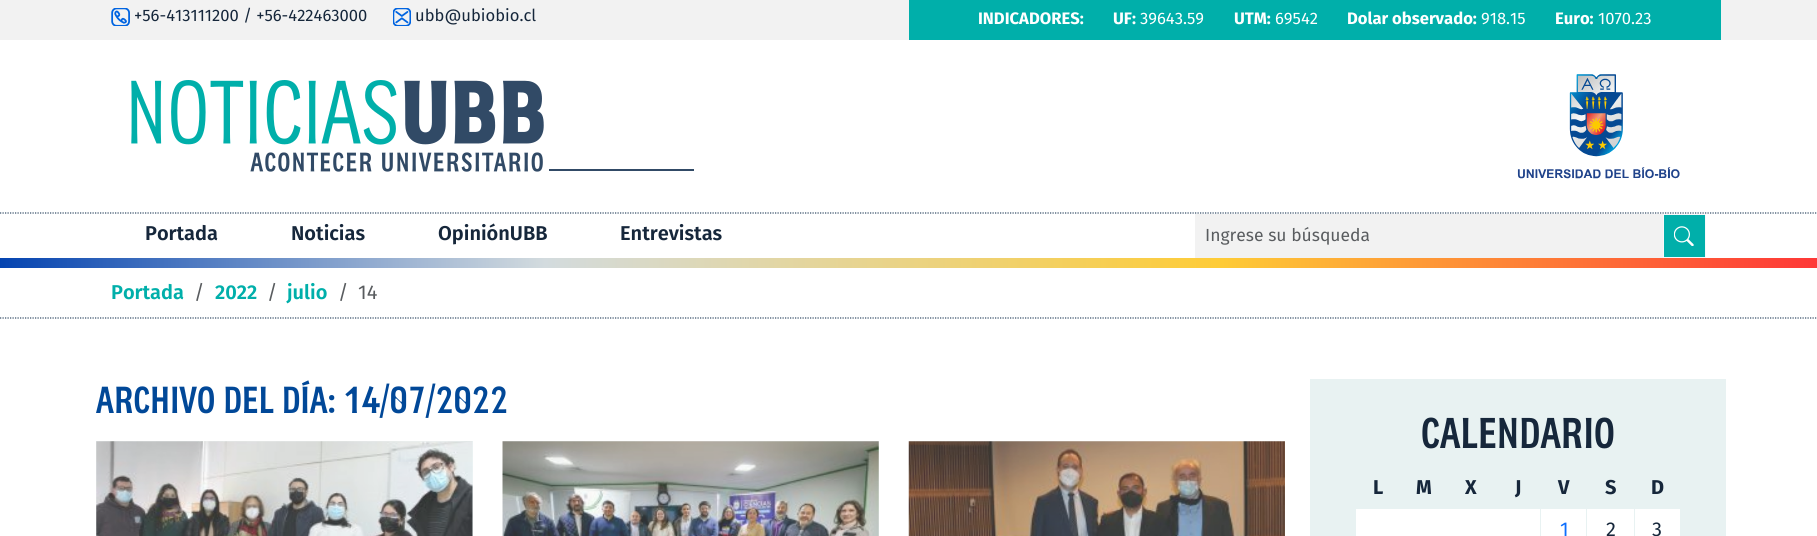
#include <cairo.h>
#include <math.h>
#include <stddef.h>

static cairo_t *ctx;

static void use_color(int r, int g, int b) {
    cairo_set_source_rgb(ctx, r / 255.0, g / 255.0, b / 255.0);
}

static void picture(const char *path, double x, double y, double w, double h) {
    cairo_surface_t *image = cairo_image_surface_create_from_png(path);
    cairo_save(ctx);
    cairo_set_source_surface(ctx, image, x, y);
    cairo_rectangle(ctx, x, y, w, h);
    cairo_fill(ctx);
    cairo_restore(ctx);
    cairo_surface_destroy(image);
}

int main(void) {
    cairo_surface_t *surface = cairo_image_surface_create(CAIRO_FORMAT_RGB24, 1817, 536);
    ctx = cairo_create(surface);
    cairo_font_options_t *options = cairo_font_options_create();
    cairo_font_options_set_hint_metrics(options, CAIRO_HINT_METRICS_OFF);
    cairo_font_options_set_hint_style(options, CAIRO_HINT_STYLE_NONE);
    cairo_set_font_options(ctx, options);
    cairo_set_miter_limit(ctx, 4);
    cairo_pattern_t *gradient;
    use_color(255, 255, 255);
    cairo_paint(ctx);
    use_color(242, 242, 242);
    cairo_rectangle(ctx, 0, 0, 1817, 40);
    cairo_fill(ctx);
    picture("img1.png", 111, 8, 19, 18);
    cairo_select_font_face(ctx, "Fira Sans", CAIRO_FONT_SLANT_NORMAL, CAIRO_FONT_WEIGHT_NORMAL);
    cairo_set_font_size(ctx, 16.6);
    use_color(22, 39, 59);
    cairo_move_to(ctx, 134, 21);
    cairo_show_text(ctx, "+56-413111200 / +56-422463000");
    picture("img2.png", 393, 8, 18, 18);
    cairo_move_to(ctx, 415, 21);
    cairo_show_text(ctx, "ubb@ubiobio.cl");
    use_color(0, 175, 170);
    cairo_rectangle(ctx, 909, 0, 812, 40);
    cairo_fill(ctx);
    cairo_select_font_face(ctx, "Fira Sans", CAIRO_FONT_SLANT_NORMAL, CAIRO_FONT_WEIGHT_BOLD);
    use_color(255, 255, 255);
    cairo_move_to(ctx, 978, 24);
    cairo_show_text(ctx, "INDICADORES:");
    cairo_move_to(ctx, 1113, 24);
    cairo_show_text(ctx, "UF:");
    cairo_select_font_face(ctx, "Fira Sans", CAIRO_FONT_SLANT_NORMAL, CAIRO_FONT_WEIGHT_NORMAL);
    cairo_move_to(ctx, 1140, 24);
    cairo_show_text(ctx, "39643.59");
    cairo_select_font_face(ctx, "Fira Sans", CAIRO_FONT_SLANT_NORMAL, CAIRO_FONT_WEIGHT_BOLD);
    cairo_move_to(ctx, 1234, 24);
    cairo_show_text(ctx, "UTM:");
    cairo_select_font_face(ctx, "Fira Sans", CAIRO_FONT_SLANT_NORMAL, CAIRO_FONT_WEIGHT_NORMAL);
    cairo_move_to(ctx, 1275, 24);
    cairo_show_text(ctx, "69542");
    cairo_select_font_face(ctx, "Fira Sans", CAIRO_FONT_SLANT_NORMAL, CAIRO_FONT_WEIGHT_BOLD);
    cairo_move_to(ctx, 1347, 24);
    cairo_show_text(ctx, "Dolar observado:");
    cairo_select_font_face(ctx, "Fira Sans", CAIRO_FONT_SLANT_NORMAL, CAIRO_FONT_WEIGHT_NORMAL);
    cairo_move_to(ctx, 1481, 24);
    cairo_show_text(ctx, "918.15");
    cairo_select_font_face(ctx, "Fira Sans", CAIRO_FONT_SLANT_NORMAL, CAIRO_FONT_WEIGHT_BOLD);
    cairo_move_to(ctx, 1555, 24);
    cairo_show_text(ctx, "Euro:");
    cairo_select_font_face(ctx, "Fira Sans", CAIRO_FONT_SLANT_NORMAL, CAIRO_FONT_WEIGHT_NORMAL);
    cairo_move_to(ctx, 1598, 24);
    cairo_show_text(ctx, "1070.23");
    picture("img3.png", 131, 80, 563, 92);
    picture("img4.png", 1517, 74, 163, 105);
    cairo_new_path(ctx);
    cairo_move_to(ctx, 0, 213);
    cairo_line_to(ctx, 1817.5, 213);
    use_color(48, 73, 100);
    cairo_set_line_width(ctx, 1.2);
    cairo_set_dash(ctx, (double[]){1.25, 1.25}, 2, 0);
    cairo_stroke(ctx);
    cairo_select_font_face(ctx, "Fira Sans SemiBold", CAIRO_FONT_SLANT_NORMAL, CAIRO_FONT_WEIGHT_NORMAL);
    cairo_set_font_size(ctx, 20);
    use_color(22, 39, 59);
    cairo_move_to(ctx, 145, 240);
    cairo_show_text(ctx, "Portada");
    cairo_move_to(ctx, 291, 240);
    cairo_show_text(ctx, "Noticias");
    cairo_move_to(ctx, 438, 240);
    cairo_show_text(ctx, "OpiniónUBB");
    cairo_move_to(ctx, 620, 240);
    cairo_show_text(ctx, "Entrevistas");
    use_color(242, 242, 242);
    cairo_rectangle(ctx, 1195, 214, 468, 44);
    cairo_fill(ctx);
    cairo_select_font_face(ctx, "Fira Sans", CAIRO_FONT_SLANT_NORMAL, CAIRO_FONT_WEIGHT_NORMAL);
    cairo_set_font_size(ctx, 17.5);
    use_color(89, 92, 95);
    cairo_move_to(ctx, 1205, 241);
    cairo_show_text(ctx, "Ingrese su búsqueda");
    use_color(0, 175, 170);
    cairo_rectangle(ctx, 1663.5, 214.5, 42, 43);
    cairo_fill_preserve(ctx);
    use_color(248, 249, 250);
    cairo_set_line_width(ctx, 1);
    cairo_set_dash(ctx, NULL, 0, 0);
    cairo_stroke(ctx);
    picture("img5.png", 1674, 226, 20, 20);
    gradient = cairo_pattern_create_linear(0, 263, 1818, 262);
    cairo_pattern_add_color_stop_rgba(gradient, 0, 0.02, 0.267, 0.694, 1);
    cairo_pattern_add_color_stop_rgba(gradient, 0.3, 0.827, 0.859, 0.871, 1);
    cairo_pattern_add_color_stop_rgba(gradient, 0.67, 0.996, 0.8, 0.216, 1);
    cairo_pattern_add_color_stop_rgba(gradient, 1, 0.996, 0.216, 0.216, 1);
    cairo_set_source(ctx, gradient);
    cairo_pattern_destroy(gradient);
    cairo_rectangle(ctx, 0, 258, 1817, 10);
    cairo_fill(ctx);
    cairo_new_path(ctx);
    cairo_move_to(ctx, 0, 318);
    cairo_line_to(ctx, 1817.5, 318);
    use_color(48, 73, 100);
    cairo_set_line_width(ctx, 1.2);
    cairo_set_dash(ctx, (double[]){1.25, 1.25}, 2, 0);
    cairo_stroke(ctx);
    cairo_select_font_face(ctx, "Fira Sans SemiBold", CAIRO_FONT_SLANT_NORMAL, CAIRO_FONT_WEIGHT_NORMAL);
    cairo_set_font_size(ctx, 20);
    use_color(0, 175, 170);
    cairo_move_to(ctx, 111, 299);
    cairo_show_text(ctx, "Portada");
    cairo_select_font_face(ctx, "Fira Sans", CAIRO_FONT_SLANT_NORMAL, CAIRO_FONT_WEIGHT_NORMAL);
    use_color(89, 92, 95);
    cairo_move_to(ctx, 194, 299);
    cairo_show_text(ctx, "/");
    cairo_select_font_face(ctx, "Fira Sans SemiBold", CAIRO_FONT_SLANT_NORMAL, CAIRO_FONT_WEIGHT_NORMAL);
    use_color(0, 175, 170);
    cairo_move_to(ctx, 215, 299);
    cairo_show_text(ctx, "2022");
    cairo_select_font_face(ctx, "Fira Sans", CAIRO_FONT_SLANT_NORMAL, CAIRO_FONT_WEIGHT_NORMAL);
    use_color(89, 92, 95);
    cairo_move_to(ctx, 267, 299);
    cairo_show_text(ctx, "/");
    cairo_select_font_face(ctx, "Fira Sans SemiBold", CAIRO_FONT_SLANT_NORMAL, CAIRO_FONT_WEIGHT_NORMAL);
    use_color(0, 175, 170);
    cairo_move_to(ctx, 287, 299);
    cairo_show_text(ctx, "julio");
    cairo_select_font_face(ctx, "Fira Sans", CAIRO_FONT_SLANT_NORMAL, CAIRO_FONT_WEIGHT_NORMAL);
    use_color(89, 92, 95);
    cairo_move_to(ctx, 338, 299);
    cairo_show_text(ctx, "/");
    cairo_move_to(ctx, 358, 299);
    cairo_show_text(ctx, "14");
    cairo_select_font_face(ctx, "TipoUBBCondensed", CAIRO_FONT_SLANT_NORMAL, CAIRO_FONT_WEIGHT_BOLD);
    cairo_set_font_size(ctx, 35);
    use_color(1, 72, 152);
    cairo_move_to(ctx, 96, 413);
    cairo_show_text(ctx, "ARCHIVO DEL DÍA: 14/07/2022");
    use_color(237, 245, 245);
    cairo_rectangle(ctx, 96, 441, 377, 95);
    cairo_fill(ctx);
    picture("img6.png", 96, 441, 377, 95);
    cairo_rectangle(ctx, 503, 441, 376, 95);
    cairo_fill(ctx);
    picture("img7.png", 502, 441, 377, 95);
    cairo_rectangle(ctx, 909, 441, 376, 95);
    cairo_fill(ctx);
    picture("img8.png", 908, 441, 377, 95);
    use_color(232, 242, 242);
    cairo_rectangle(ctx, 1310, 379, 416, 157);
    cairo_fill(ctx);
    cairo_set_font_size(ctx, 40);
    use_color(22, 39, 59);
    cairo_move_to(ctx, 1421, 448);
    cairo_show_text(ctx, "CALENDARIO");
    cairo_select_font_face(ctx, "Fira Sans", CAIRO_FONT_SLANT_NORMAL, CAIRO_FONT_WEIGHT_BOLD);
    cairo_set_font_size(ctx, 20);
    cairo_move_to(ctx, 1373, 494);
    cairo_show_text(ctx, "L");
    cairo_move_to(ctx, 1416, 494);
    cairo_show_text(ctx, "M");
    cairo_move_to(ctx, 1465, 494);
    cairo_show_text(ctx, "X");
    cairo_move_to(ctx, 1515, 494);
    cairo_show_text(ctx, "J");
    cairo_move_to(ctx, 1558, 494);
    cairo_show_text(ctx, "V");
    cairo_move_to(ctx, 1605, 494);
    cairo_show_text(ctx, "S");
    cairo_move_to(ctx, 1651, 494);
    cairo_show_text(ctx, "D");
    use_color(255, 255, 255);
    cairo_rectangle(ctx, 1356, 509, 184, 27);
    cairo_fill(ctx);
    cairo_rectangle(ctx, 1541, 509, 93, 27);
    cairo_fill(ctx);
    cairo_select_font_face(ctx, "Fira Sans", CAIRO_FONT_SLANT_NORMAL, CAIRO_FONT_WEIGHT_NORMAL);
    use_color(13, 110, 253);
    cairo_move_to(ctx, 1560, 536);
    cairo_show_text(ctx, "1");
    use_color(232, 242, 242);
    cairo_rectangle(ctx, 1586, 508, 1, 28);
    cairo_fill(ctx);
    use_color(22, 39, 59);
    cairo_move_to(ctx, 1606, 536);
    cairo_show_text(ctx, "2");
    use_color(255, 255, 255);
    cairo_rectangle(ctx, 1635, 509, 45, 27);
    cairo_fill(ctx);
    use_color(22, 39, 59);
    cairo_move_to(ctx, 1652, 536);
    cairo_show_text(ctx, "3");
    cairo_surface_write_to_png(surface, "result.png");
    cairo_font_options_destroy(options);
    cairo_destroy(ctx);
    cairo_surface_destroy(surface);
    return 0;
}
